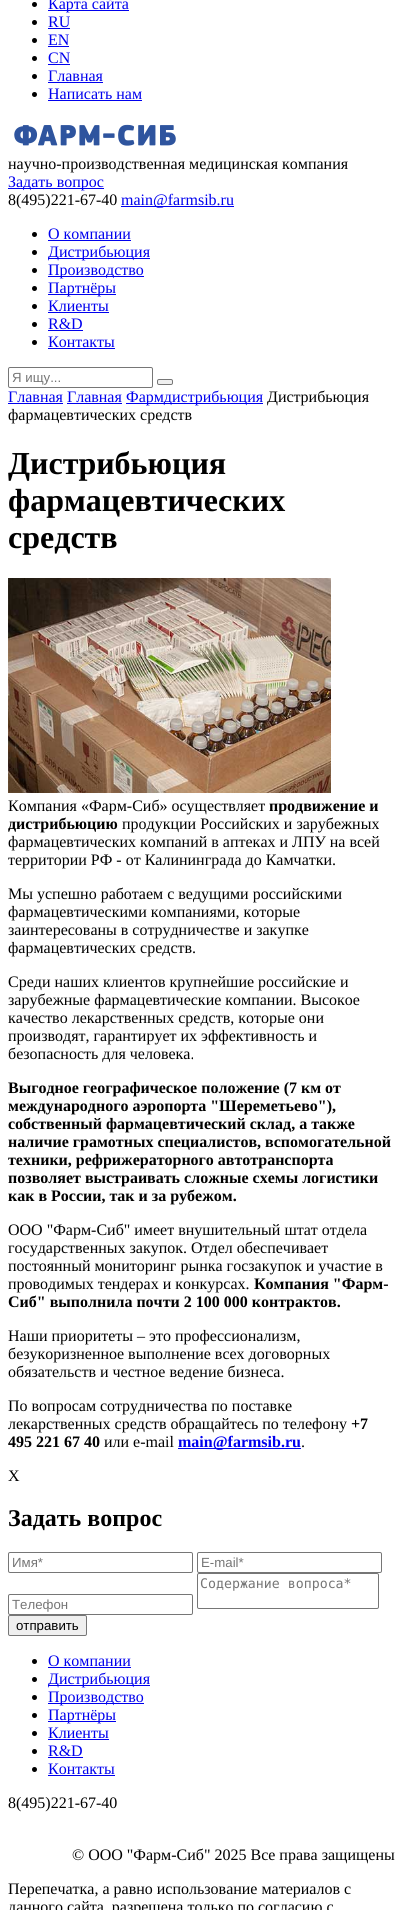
#include <cairo.h>
#include <math.h>
#include <stddef.h>

static cairo_t *ctx;

static void use_color(int r, int g, int b) {
    cairo_set_source_rgb(ctx, r / 255.0, g / 255.0, b / 255.0);
}

static void round_rect(double x, double y, double w, double h, double r) {
    cairo_new_sub_path(ctx);
    cairo_arc(ctx, x + w - r, y + h - r, r, 0, M_PI / 2);
    cairo_arc(ctx, x + r, y + h - r, r, M_PI / 2, M_PI);
    cairo_arc(ctx, x + r, y + r, r, M_PI, 1.5 * M_PI);
    cairo_arc(ctx, x + w - r, y + r, r, 1.5 * M_PI, 2 * M_PI);
    cairo_close_path(ctx);
}

static void picture(const char *path, double x, double y, double w, double h) {
    cairo_surface_t *image = cairo_image_surface_create_from_png(path);
    cairo_save(ctx);
    cairo_set_source_surface(ctx, image, x, y);
    cairo_rectangle(ctx, x, y, w, h);
    cairo_fill(ctx);
    cairo_restore(ctx);
    cairo_surface_destroy(image);
}

int main(void) {
    cairo_surface_t *surface = cairo_image_surface_create(CAIRO_FORMAT_RGB24, 403, 1910);
    ctx = cairo_create(surface);
    cairo_font_options_t *options = cairo_font_options_create();
    cairo_font_options_set_hint_metrics(options, CAIRO_HINT_METRICS_OFF);
    cairo_font_options_set_hint_style(options, CAIRO_HINT_STYLE_NONE);
    cairo_set_font_options(ctx, options);
    cairo_set_miter_limit(ctx, 4);
    use_color(255, 255, 255);
    cairo_paint(ctx);
    use_color(0, 0, 0);
    cairo_arc(ctx, 34.5, 4.5, 2.5, 0, 2 * M_PI);
    cairo_fill(ctx);
    use_color(0, 0, 238);
    cairo_rectangle(ctx, 48, 10, 81, 1);
    cairo_fill(ctx);
    cairo_select_font_face(ctx, "Liberation Serif", CAIRO_FONT_SLANT_NORMAL, CAIRO_FONT_WEIGHT_NORMAL);
    cairo_set_font_size(ctx, 16);
    cairo_move_to(ctx, 48, 9);
    cairo_show_text(ctx, "Карта сайта");
    use_color(0, 0, 0);
    cairo_new_path(ctx);
    cairo_arc(ctx, 34.5, 22.5, 2.5, 0, 2 * M_PI);
    cairo_fill(ctx);
    use_color(0, 0, 238);
    cairo_move_to(ctx, 48, 27);
    cairo_show_text(ctx, "RU");
    cairo_rectangle(ctx, 48, 28, 22, 1);
    cairo_fill(ctx);
    use_color(0, 0, 0);
    cairo_arc(ctx, 34.5, 40.5, 2.5, 0, 2 * M_PI);
    cairo_fill(ctx);
    use_color(0, 0, 238);
    cairo_move_to(ctx, 48, 45);
    cairo_show_text(ctx, "EN");
    cairo_rectangle(ctx, 48, 46, 21, 1);
    cairo_fill(ctx);
    use_color(0, 0, 0);
    cairo_arc(ctx, 34.5, 58.5, 2.5, 0, 2 * M_PI);
    cairo_fill(ctx);
    use_color(0, 0, 238);
    cairo_move_to(ctx, 48, 63);
    cairo_show_text(ctx, "CN");
    cairo_rectangle(ctx, 48, 64, 22, 1);
    cairo_fill(ctx);
    use_color(0, 0, 0);
    cairo_arc(ctx, 34.5, 76.5, 2.5, 0, 2 * M_PI);
    cairo_fill(ctx);
    use_color(0, 0, 238);
    cairo_move_to(ctx, 48, 81);
    cairo_show_text(ctx, "Главная");
    cairo_rectangle(ctx, 48, 82, 55, 1);
    cairo_fill(ctx);
    use_color(0, 0, 0);
    cairo_arc(ctx, 34.5, 94.5, 2.5, 0, 2 * M_PI);
    cairo_fill(ctx);
    use_color(0, 0, 238);
    cairo_move_to(ctx, 48, 99);
    cairo_show_text(ctx, "Написать нам");
    cairo_rectangle(ctx, 48, 100, 94, 1);
    cairo_fill(ctx);
    picture("img1.png", 14, 124, 162, 22);
    use_color(0, 0, 0);
    cairo_move_to(ctx, 8, 169);
    cairo_show_text(ctx, "научно-производственная медицинская компания");
    use_color(0, 0, 238);
    cairo_rectangle(ctx, 8, 188, 96, 1);
    cairo_fill(ctx);
    cairo_move_to(ctx, 8, 187);
    cairo_show_text(ctx, "Задать вопрос");
    use_color(0, 0, 0);
    cairo_move_to(ctx, 8, 205);
    cairo_show_text(ctx, "8(495)221-67-40");
    use_color(0, 0, 238);
    cairo_rectangle(ctx, 121, 206, 113, 1);
    cairo_fill(ctx);
    cairo_move_to(ctx, 121, 205);
    cairo_show_text(ctx, "main@farmsib.ru");
    use_color(0, 0, 0);
    cairo_new_path(ctx);
    cairo_arc(ctx, 34.5, 234.5, 2.5, 0, 2 * M_PI);
    cairo_fill(ctx);
    use_color(0, 0, 238);
    cairo_move_to(ctx, 48, 239);
    cairo_show_text(ctx, "О компании");
    cairo_rectangle(ctx, 48, 240, 83, 1);
    cairo_fill(ctx);
    use_color(0, 0, 0);
    cairo_arc(ctx, 34.5, 252.5, 2.5, 0, 2 * M_PI);
    cairo_fill(ctx);
    use_color(0, 0, 238);
    cairo_rectangle(ctx, 48, 258, 102, 1);
    cairo_fill(ctx);
    cairo_move_to(ctx, 48, 257);
    cairo_show_text(ctx, "Дистрибьюция");
    use_color(0, 0, 0);
    cairo_new_path(ctx);
    cairo_arc(ctx, 34.5, 270.5, 2.5, 0, 2 * M_PI);
    cairo_fill(ctx);
    use_color(0, 0, 238);
    cairo_rectangle(ctx, 48, 276, 96, 1);
    cairo_fill(ctx);
    cairo_move_to(ctx, 48, 275);
    cairo_show_text(ctx, "Производство");
    use_color(0, 0, 0);
    cairo_new_path(ctx);
    cairo_arc(ctx, 34.5, 288.5, 2.5, 0, 2 * M_PI);
    cairo_fill(ctx);
    use_color(0, 0, 238);
    cairo_rectangle(ctx, 48, 294, 68, 1);
    cairo_fill(ctx);
    cairo_move_to(ctx, 48, 293);
    cairo_show_text(ctx, "Партнёры");
    use_color(0, 0, 0);
    cairo_new_path(ctx);
    cairo_arc(ctx, 34.5, 306.5, 2.5, 0, 2 * M_PI);
    cairo_fill(ctx);
    use_color(0, 0, 238);
    cairo_move_to(ctx, 48, 311);
    cairo_show_text(ctx, "Клиенты");
    cairo_rectangle(ctx, 48, 312, 61, 1);
    cairo_fill(ctx);
    use_color(0, 0, 0);
    cairo_arc(ctx, 34.5, 324.5, 2.5, 0, 2 * M_PI);
    cairo_fill(ctx);
    use_color(0, 0, 238);
    cairo_move_to(ctx, 48, 329);
    cairo_show_text(ctx, "R&D");
    cairo_rectangle(ctx, 48, 330, 35, 1);
    cairo_fill(ctx);
    use_color(0, 0, 0);
    cairo_arc(ctx, 34.5, 342.5, 2.5, 0, 2 * M_PI);
    cairo_fill(ctx);
    use_color(0, 0, 238);
    cairo_move_to(ctx, 48, 347);
    cairo_show_text(ctx, "Контакты");
    cairo_rectangle(ctx, 48, 348, 67, 1);
    cairo_fill(ctx);
    round_rect(8.5, 367.5, 144, 20, 1.5);
    use_color(118, 118, 118);
    cairo_set_line_width(ctx, 1);
    cairo_stroke(ctx);
    cairo_select_font_face(ctx, "Liberation Sans", CAIRO_FONT_SLANT_NORMAL, CAIRO_FONT_WEIGHT_NORMAL);
    cairo_set_font_size(ctx, 13.25);
    use_color(117, 117, 117);
    cairo_move_to(ctx, 12, 382);
    cairo_show_text(ctx, "Я ищу...");
    use_color(239, 239, 239);
    round_rect(157.5, 379.5, 15, 5, 1.5);
    cairo_fill_preserve(ctx);
    use_color(118, 118, 118);
    cairo_stroke(ctx);
    cairo_select_font_face(ctx, "Liberation Serif", CAIRO_FONT_SLANT_NORMAL, CAIRO_FONT_WEIGHT_NORMAL);
    cairo_set_font_size(ctx, 16);
    use_color(0, 0, 238);
    cairo_move_to(ctx, 8, 402);
    cairo_show_text(ctx, "Главная Главная");
    cairo_rectangle(ctx, 8, 403, 55, 1);
    cairo_fill(ctx);
    cairo_rectangle(ctx, 126, 403, 137, 1);
    cairo_fill(ctx);
    cairo_move_to(ctx, 126, 402);
    cairo_show_text(ctx, "Фармдистрибьюция");
    use_color(0, 0, 0);
    cairo_move_to(ctx, 267, 402);
    cairo_show_text(ctx, "Дистрибьюция");
    use_color(0, 0, 238);
    cairo_rectangle(ctx, 67, 403, 55, 1);
    cairo_fill(ctx);
    use_color(0, 0, 0);
    cairo_move_to(ctx, 8, 420);
    cairo_show_text(ctx, "фармацевтических средств");
    cairo_select_font_face(ctx, "Liberation Serif", CAIRO_FONT_SLANT_NORMAL, CAIRO_FONT_WEIGHT_BOLD);
    cairo_set_font_size(ctx, 32);
    cairo_move_to(ctx, 8, 474);
    cairo_show_text(ctx, "Дистрибьюция");
    cairo_move_to(ctx, 8, 511);
    cairo_show_text(ctx, "фармацевтических");
    cairo_move_to(ctx, 8, 548);
    cairo_show_text(ctx, "средств");
    picture("img2.png", 8, 578, 323, 215);
    cairo_select_font_face(ctx, "Liberation Serif", CAIRO_FONT_SLANT_NORMAL, CAIRO_FONT_WEIGHT_NORMAL);
    cairo_set_font_size(ctx, 16);
    cairo_move_to(ctx, 8, 811);
    cairo_show_text(ctx, "Компания «Фарм-Сиб» осуществляет");
    cairo_select_font_face(ctx, "Liberation Serif", CAIRO_FONT_SLANT_NORMAL, CAIRO_FONT_WEIGHT_BOLD);
    cairo_move_to(ctx, 269, 811);
    cairo_show_text(ctx, "продвижение и");
    cairo_move_to(ctx, 8, 829);
    cairo_show_text(ctx, "дистрибьюцию");
    cairo_select_font_face(ctx, "Liberation Serif", CAIRO_FONT_SLANT_NORMAL, CAIRO_FONT_WEIGHT_NORMAL);
    cairo_move_to(ctx, 122, 829);
    cairo_show_text(ctx, "продукции Российских и зарубежных");
    cairo_move_to(ctx, 8, 847);
    cairo_show_text(ctx, "фармацевтических компаний в аптеках и ЛПУ на всей");
    cairo_move_to(ctx, 8, 865);
    cairo_show_text(ctx, "территории РФ - от Калининграда до Камчатки.");
    cairo_move_to(ctx, 8, 899);
    cairo_show_text(ctx, "Мы успешно работаем с ведущими российскими");
    cairo_move_to(ctx, 8, 917);
    cairo_show_text(ctx, "фармацевтическими компаниями, которые");
    cairo_move_to(ctx, 8, 935);
    cairo_show_text(ctx, "заинтересованы в сотрудничестве и закупке");
    cairo_move_to(ctx, 8, 953);
    cairo_show_text(ctx, "фармацевтических средств.");
    cairo_move_to(ctx, 8, 987);
    cairo_show_text(ctx, "Среди наших клиентов крупнейшие российские и");
    cairo_move_to(ctx, 8, 1005);
    cairo_show_text(ctx, "зарубежные фармацевтические компании. Высокое");
    cairo_move_to(ctx, 8, 1023);
    cairo_show_text(ctx, "качество лекарственных средств, которые они");
    cairo_move_to(ctx, 8, 1041);
    cairo_show_text(ctx, "производят, гарантирует их эффективность и");
    cairo_move_to(ctx, 8, 1059);
    cairo_show_text(ctx, "безопасность для человека.");
    cairo_select_font_face(ctx, "Liberation Serif", CAIRO_FONT_SLANT_NORMAL, CAIRO_FONT_WEIGHT_BOLD);
    cairo_move_to(ctx, 8, 1093);
    cairo_show_text(ctx, "Выгодное географическое положение (7 км от");
    cairo_move_to(ctx, 8, 1111);
    cairo_show_text(ctx, "международного аэропорта \"Шереметьево\"),");
    cairo_move_to(ctx, 8, 1129);
    cairo_show_text(ctx, "собственный фармацевтический склад, а также");
    cairo_move_to(ctx, 8, 1147);
    cairo_show_text(ctx, "наличие грамотных специалистов, вспомогательной");
    cairo_move_to(ctx, 8, 1165);
    cairo_show_text(ctx, "техники, рефрижераторного автотранспорта");
    cairo_move_to(ctx, 8, 1183);
    cairo_show_text(ctx, "позволяет выстраивать сложные схемы логистики");
    cairo_move_to(ctx, 8, 1201);
    cairo_show_text(ctx, "как в России, так и за рубежом.");
    cairo_select_font_face(ctx, "Liberation Serif", CAIRO_FONT_SLANT_NORMAL, CAIRO_FONT_WEIGHT_NORMAL);
    cairo_move_to(ctx, 8, 1235);
    cairo_show_text(ctx, "ООО \"Фарм-Сиб\" имеет внушительный штат отдела");
    cairo_move_to(ctx, 8, 1253);
    cairo_show_text(ctx, "государственных закупок. Отдел обеспечивает");
    cairo_move_to(ctx, 8, 1271);
    cairo_show_text(ctx, "постоянный мониторинг рынка госзакупок и участие в");
    cairo_move_to(ctx, 8, 1289);
    cairo_show_text(ctx, "проводимых тендерах и конкурсах.");
    cairo_select_font_face(ctx, "Liberation Serif", CAIRO_FONT_SLANT_NORMAL, CAIRO_FONT_WEIGHT_BOLD);
    cairo_move_to(ctx, 254, 1289);
    cairo_show_text(ctx, "Компания \"Фарм-");
    cairo_move_to(ctx, 8, 1307);
    cairo_show_text(ctx, "Сиб\" выполнила почти 2 100 000 контрактов.");
    cairo_select_font_face(ctx, "Liberation Serif", CAIRO_FONT_SLANT_NORMAL, CAIRO_FONT_WEIGHT_NORMAL);
    cairo_move_to(ctx, 8, 1341);
    cairo_show_text(ctx, "Наши приоритеты – это профессионализм,");
    cairo_move_to(ctx, 8, 1359);
    cairo_show_text(ctx, "безукоризненное выполнение всех договорных");
    cairo_move_to(ctx, 8, 1377);
    cairo_show_text(ctx, "обязательств и честное ведение бизнеса.");
    cairo_move_to(ctx, 8, 1411);
    cairo_show_text(ctx, "По вопросам сотрудничества по поставке");
    cairo_move_to(ctx, 8, 1429);
    cairo_show_text(ctx, "лекарственных средств обращайтесь по телефону");
    cairo_select_font_face(ctx, "Liberation Serif", CAIRO_FONT_SLANT_NORMAL, CAIRO_FONT_WEIGHT_BOLD);
    cairo_move_to(ctx, 351, 1429);
    cairo_show_text(ctx, "+7");
    cairo_move_to(ctx, 8, 1447);
    cairo_show_text(ctx, "495 221 67 40");
    cairo_select_font_face(ctx, "Liberation Serif", CAIRO_FONT_SLANT_NORMAL, CAIRO_FONT_WEIGHT_NORMAL);
    cairo_move_to(ctx, 104, 1447);
    cairo_show_text(ctx, "или e-mail");
    use_color(0, 0, 238);
    cairo_rectangle(ctx, 178, 1448, 123, 1);
    cairo_fill(ctx);
    cairo_select_font_face(ctx, "Liberation Serif", CAIRO_FONT_SLANT_NORMAL, CAIRO_FONT_WEIGHT_BOLD);
    cairo_move_to(ctx, 178, 1447);
    cairo_show_text(ctx, "main@farmsib.ru");
    cairo_select_font_face(ctx, "Liberation Serif", CAIRO_FONT_SLANT_NORMAL, CAIRO_FONT_WEIGHT_NORMAL);
    use_color(0, 0, 0);
    cairo_move_to(ctx, 301, 1447);
    cairo_show_text(ctx, ".");
    cairo_move_to(ctx, 8, 1481);
    cairo_show_text(ctx, "X");
    cairo_select_font_face(ctx, "Liberation Serif", CAIRO_FONT_SLANT_NORMAL, CAIRO_FONT_WEIGHT_BOLD);
    cairo_set_font_size(ctx, 24);
    cairo_move_to(ctx, 8, 1526);
    cairo_show_text(ctx, "Задать вопрос");
    round_rect(8.5, 1552.5, 184, 20, 1.5);
    use_color(118, 118, 118);
    cairo_stroke(ctx);
    cairo_select_font_face(ctx, "Liberation Sans", CAIRO_FONT_SLANT_NORMAL, CAIRO_FONT_WEIGHT_NORMAL);
    cairo_set_font_size(ctx, 13.25);
    use_color(117, 117, 117);
    cairo_move_to(ctx, 12, 1567);
    cairo_show_text(ctx, "Имя*");
    round_rect(197.5, 1552.5, 184, 20, 1.5);
    use_color(118, 118, 118);
    cairo_stroke(ctx);
    use_color(117, 117, 117);
    cairo_move_to(ctx, 201, 1567);
    cairo_show_text(ctx, "E-mail*");
    round_rect(197.5, 1573.5, 181, 35, 1.5);
    use_color(118, 118, 118);
    cairo_stroke(ctx);
    cairo_select_font_face(ctx, "DejaVu Sans Mono", CAIRO_FONT_SLANT_NORMAL, CAIRO_FONT_WEIGHT_NORMAL);
    use_color(117, 117, 117);
    cairo_move_to(ctx, 200, 1588);
    cairo_show_text(ctx, "Содержание вопроса*");
    round_rect(8.5, 1594.5, 184, 20, 1.5);
    use_color(118, 118, 118);
    cairo_stroke(ctx);
    cairo_select_font_face(ctx, "Liberation Sans", CAIRO_FONT_SLANT_NORMAL, CAIRO_FONT_WEIGHT_NORMAL);
    use_color(117, 117, 117);
    cairo_move_to(ctx, 12, 1609);
    cairo_show_text(ctx, "Телефон");
    use_color(239, 239, 239);
    round_rect(8.5, 1615.5, 78, 20, 1.5);
    cairo_fill_preserve(ctx);
    use_color(118, 118, 118);
    cairo_stroke(ctx);
    use_color(0, 0, 0);
    cairo_move_to(ctx, 16, 1630);
    cairo_show_text(ctx, "отправить");
    cairo_new_path(ctx);
    cairo_arc(ctx, 34.5, 1661.5, 2.5, 0, 2 * M_PI);
    cairo_fill(ctx);
    cairo_select_font_face(ctx, "Liberation Serif", CAIRO_FONT_SLANT_NORMAL, CAIRO_FONT_WEIGHT_NORMAL);
    cairo_set_font_size(ctx, 16);
    use_color(0, 0, 238);
    cairo_move_to(ctx, 48, 1666);
    cairo_show_text(ctx, "О компании");
    cairo_rectangle(ctx, 48, 1667, 83, 1);
    cairo_fill(ctx);
    use_color(0, 0, 0);
    cairo_arc(ctx, 34.5, 1679.5, 2.5, 0, 2 * M_PI);
    cairo_fill(ctx);
    use_color(0, 0, 238);
    cairo_rectangle(ctx, 48, 1685, 102, 1);
    cairo_fill(ctx);
    cairo_move_to(ctx, 48, 1684);
    cairo_show_text(ctx, "Дистрибьюция");
    use_color(0, 0, 0);
    cairo_new_path(ctx);
    cairo_arc(ctx, 34.5, 1697.5, 2.5, 0, 2 * M_PI);
    cairo_fill(ctx);
    use_color(0, 0, 238);
    cairo_rectangle(ctx, 48, 1703, 96, 1);
    cairo_fill(ctx);
    cairo_move_to(ctx, 48, 1702);
    cairo_show_text(ctx, "Производство");
    use_color(0, 0, 0);
    cairo_new_path(ctx);
    cairo_arc(ctx, 34.5, 1715.5, 2.5, 0, 2 * M_PI);
    cairo_fill(ctx);
    use_color(0, 0, 238);
    cairo_rectangle(ctx, 48, 1721, 68, 1);
    cairo_fill(ctx);
    cairo_move_to(ctx, 48, 1720);
    cairo_show_text(ctx, "Партнёры");
    use_color(0, 0, 0);
    cairo_new_path(ctx);
    cairo_arc(ctx, 34.5, 1733.5, 2.5, 0, 2 * M_PI);
    cairo_fill(ctx);
    use_color(0, 0, 238);
    cairo_move_to(ctx, 48, 1738);
    cairo_show_text(ctx, "Клиенты");
    cairo_rectangle(ctx, 48, 1739, 61, 1);
    cairo_fill(ctx);
    use_color(0, 0, 0);
    cairo_arc(ctx, 34.5, 1751.5, 2.5, 0, 2 * M_PI);
    cairo_fill(ctx);
    use_color(0, 0, 238);
    cairo_move_to(ctx, 48, 1756);
    cairo_show_text(ctx, "R&D");
    cairo_rectangle(ctx, 48, 1757, 35, 1);
    cairo_fill(ctx);
    use_color(0, 0, 0);
    cairo_arc(ctx, 34.5, 1769.5, 2.5, 0, 2 * M_PI);
    cairo_fill(ctx);
    use_color(0, 0, 238);
    cairo_move_to(ctx, 48, 1774);
    cairo_show_text(ctx, "Контакты");
    cairo_rectangle(ctx, 48, 1775, 67, 1);
    cairo_fill(ctx);
    use_color(0, 0, 0);
    cairo_move_to(ctx, 8, 1808);
    cairo_show_text(ctx, "8(495)221-67-40");
    cairo_move_to(ctx, 72, 1860);
    cairo_show_text(ctx, "© ООО \"Фарм-Сиб\" 2025 Все права защищены");
    cairo_move_to(ctx, 8, 1894);
    cairo_show_text(ctx, "Перепечатка, а равно использование материалов с");
    cairo_move_to(ctx, 8, 1912);
    cairo_show_text(ctx, "данного сайта, разрешена только по согласию с");
    cairo_surface_write_to_png(surface, "result.png");
    cairo_font_options_destroy(options);
    cairo_destroy(ctx);
    cairo_surface_destroy(surface);
    return 0;
}
